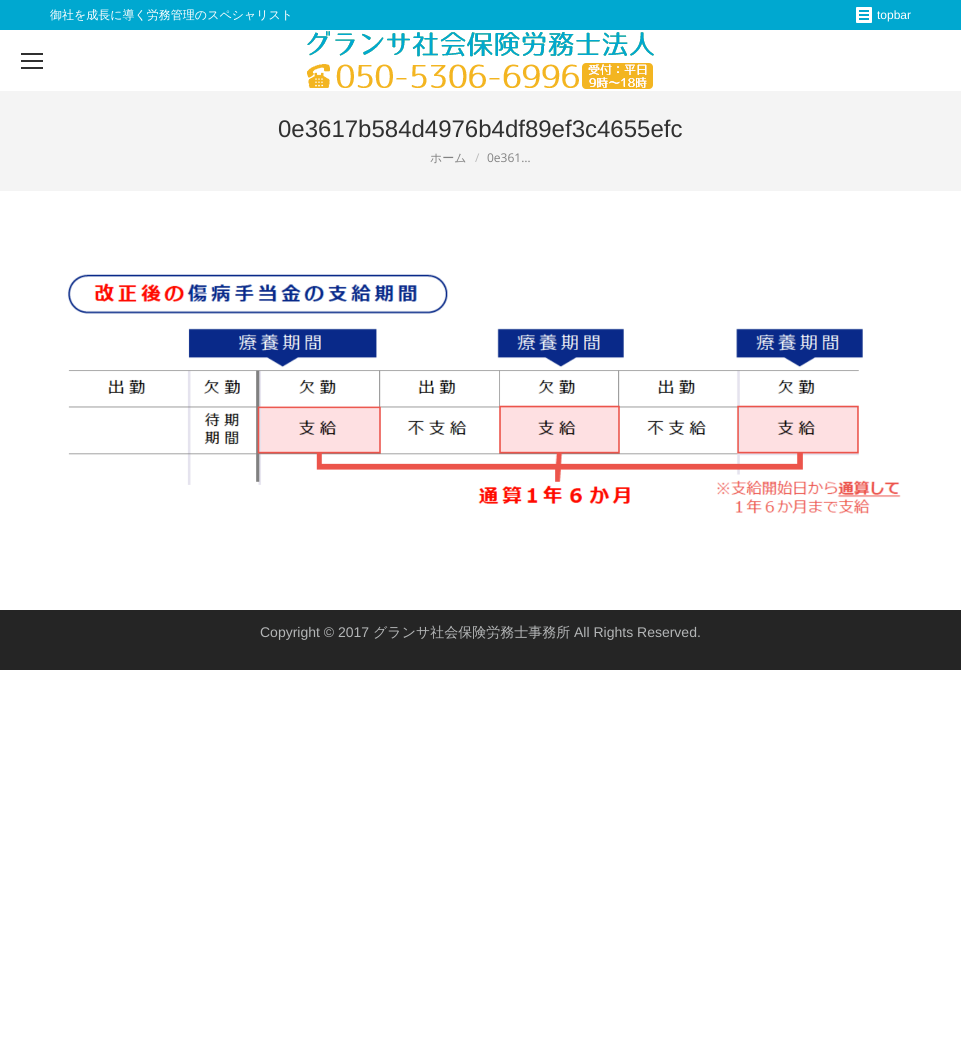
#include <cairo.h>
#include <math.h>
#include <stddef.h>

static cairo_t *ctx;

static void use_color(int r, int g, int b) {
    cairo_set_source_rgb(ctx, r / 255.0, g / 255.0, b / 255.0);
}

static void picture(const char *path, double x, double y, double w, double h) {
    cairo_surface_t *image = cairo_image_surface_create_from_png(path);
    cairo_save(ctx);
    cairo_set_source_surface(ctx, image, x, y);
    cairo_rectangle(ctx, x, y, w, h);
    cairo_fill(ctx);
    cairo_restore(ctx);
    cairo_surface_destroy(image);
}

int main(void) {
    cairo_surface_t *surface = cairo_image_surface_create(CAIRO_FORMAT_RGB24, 961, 1051);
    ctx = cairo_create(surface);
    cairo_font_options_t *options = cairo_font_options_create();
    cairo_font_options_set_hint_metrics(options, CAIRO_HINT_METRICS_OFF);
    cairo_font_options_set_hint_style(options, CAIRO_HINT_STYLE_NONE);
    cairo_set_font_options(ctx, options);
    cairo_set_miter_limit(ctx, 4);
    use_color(255, 255, 255);
    cairo_paint(ctx);
    use_color(0, 168, 208);
    cairo_rectangle(ctx, 0, 0, 961, 30);
    cairo_fill(ctx);
    cairo_select_font_face(ctx, "WenQuanYi Zen Hei Medium", CAIRO_FONT_SLANT_NORMAL, CAIRO_FONT_WEIGHT_NORMAL);
    cairo_set_font_size(ctx, 12);
    use_color(255, 255, 255);
    cairo_move_to(ctx, 50, 19);
    cairo_show_text(ctx, "御社を成長に導く労務管理のスペシャリスト");
    picture("img1.png", 856, 7, 16, 16);
    cairo_select_font_face(ctx, "Liberation Sans", CAIRO_FONT_SLANT_NORMAL, CAIRO_FONT_WEIGHT_NORMAL);
    cairo_move_to(ctx, 877, 19);
    cairo_show_text(ctx, "topbar");
    use_color(48, 48, 48);
    cairo_rectangle(ctx, 21, 53, 22, 2);
    cairo_fill(ctx);
    cairo_rectangle(ctx, 21, 60, 22, 2);
    cairo_fill(ctx);
    cairo_rectangle(ctx, 21, 67, 22, 2);
    cairo_fill(ctx);
    picture("img2.png", 307, 31, 347, 58);
    use_color(244, 244, 244);
    cairo_rectangle(ctx, 0, 91, 961, 100);
    cairo_fill(ctx);
    cairo_set_font_size(ctx, 24);
    use_color(48, 48, 48);
    cairo_move_to(ctx, 278, 137);
    cairo_show_text(ctx, "0e3617b584d4976b4df89ef3c4655efc");
    cairo_select_font_face(ctx, "WenQuanYi Zen Hei Medium", CAIRO_FONT_SLANT_NORMAL, CAIRO_FONT_WEIGHT_NORMAL);
    cairo_set_font_size(ctx, 12);
    use_color(130, 130, 130);
    cairo_move_to(ctx, 430, 162);
    cairo_show_text(ctx, "ホーム");
    cairo_select_font_face(ctx, "Open Sans", CAIRO_FONT_SLANT_NORMAL, CAIRO_FONT_WEIGHT_NORMAL);
    use_color(187, 187, 187);
    cairo_move_to(ctx, 475, 162);
    cairo_show_text(ctx, "/");
    use_color(130, 130, 130);
    cairo_move_to(ctx, 487, 162);
    cairo_show_text(ctx, "0e361…");
    picture("img3.png", 67, 274, 834, 240);
    use_color(37, 37, 37);
    cairo_rectangle(ctx, 0, 610, 961, 60);
    cairo_fill(ctx);
    cairo_select_font_face(ctx, "Liberation Sans", CAIRO_FONT_SLANT_NORMAL, CAIRO_FONT_WEIGHT_NORMAL);
    cairo_set_font_size(ctx, 14);
    use_color(179, 181, 182);
    cairo_move_to(ctx, 260, 637);
    cairo_show_text(ctx, "Copyright © 2017");
    cairo_select_font_face(ctx, "WenQuanYi Zen Hei Medium", CAIRO_FONT_SLANT_NORMAL, CAIRO_FONT_WEIGHT_NORMAL);
    cairo_move_to(ctx, 373, 637);
    cairo_show_text(ctx, "グランサ社会保険労務士事務所");
    cairo_select_font_face(ctx, "Liberation Sans", CAIRO_FONT_SLANT_NORMAL, CAIRO_FONT_WEIGHT_NORMAL);
    cairo_move_to(ctx, 574, 637);
    cairo_show_text(ctx, "All Rights Reserved.");
    cairo_surface_write_to_png(surface, "result.png");
    cairo_font_options_destroy(options);
    cairo_destroy(ctx);
    cairo_surface_destroy(surface);
    return 0;
}
